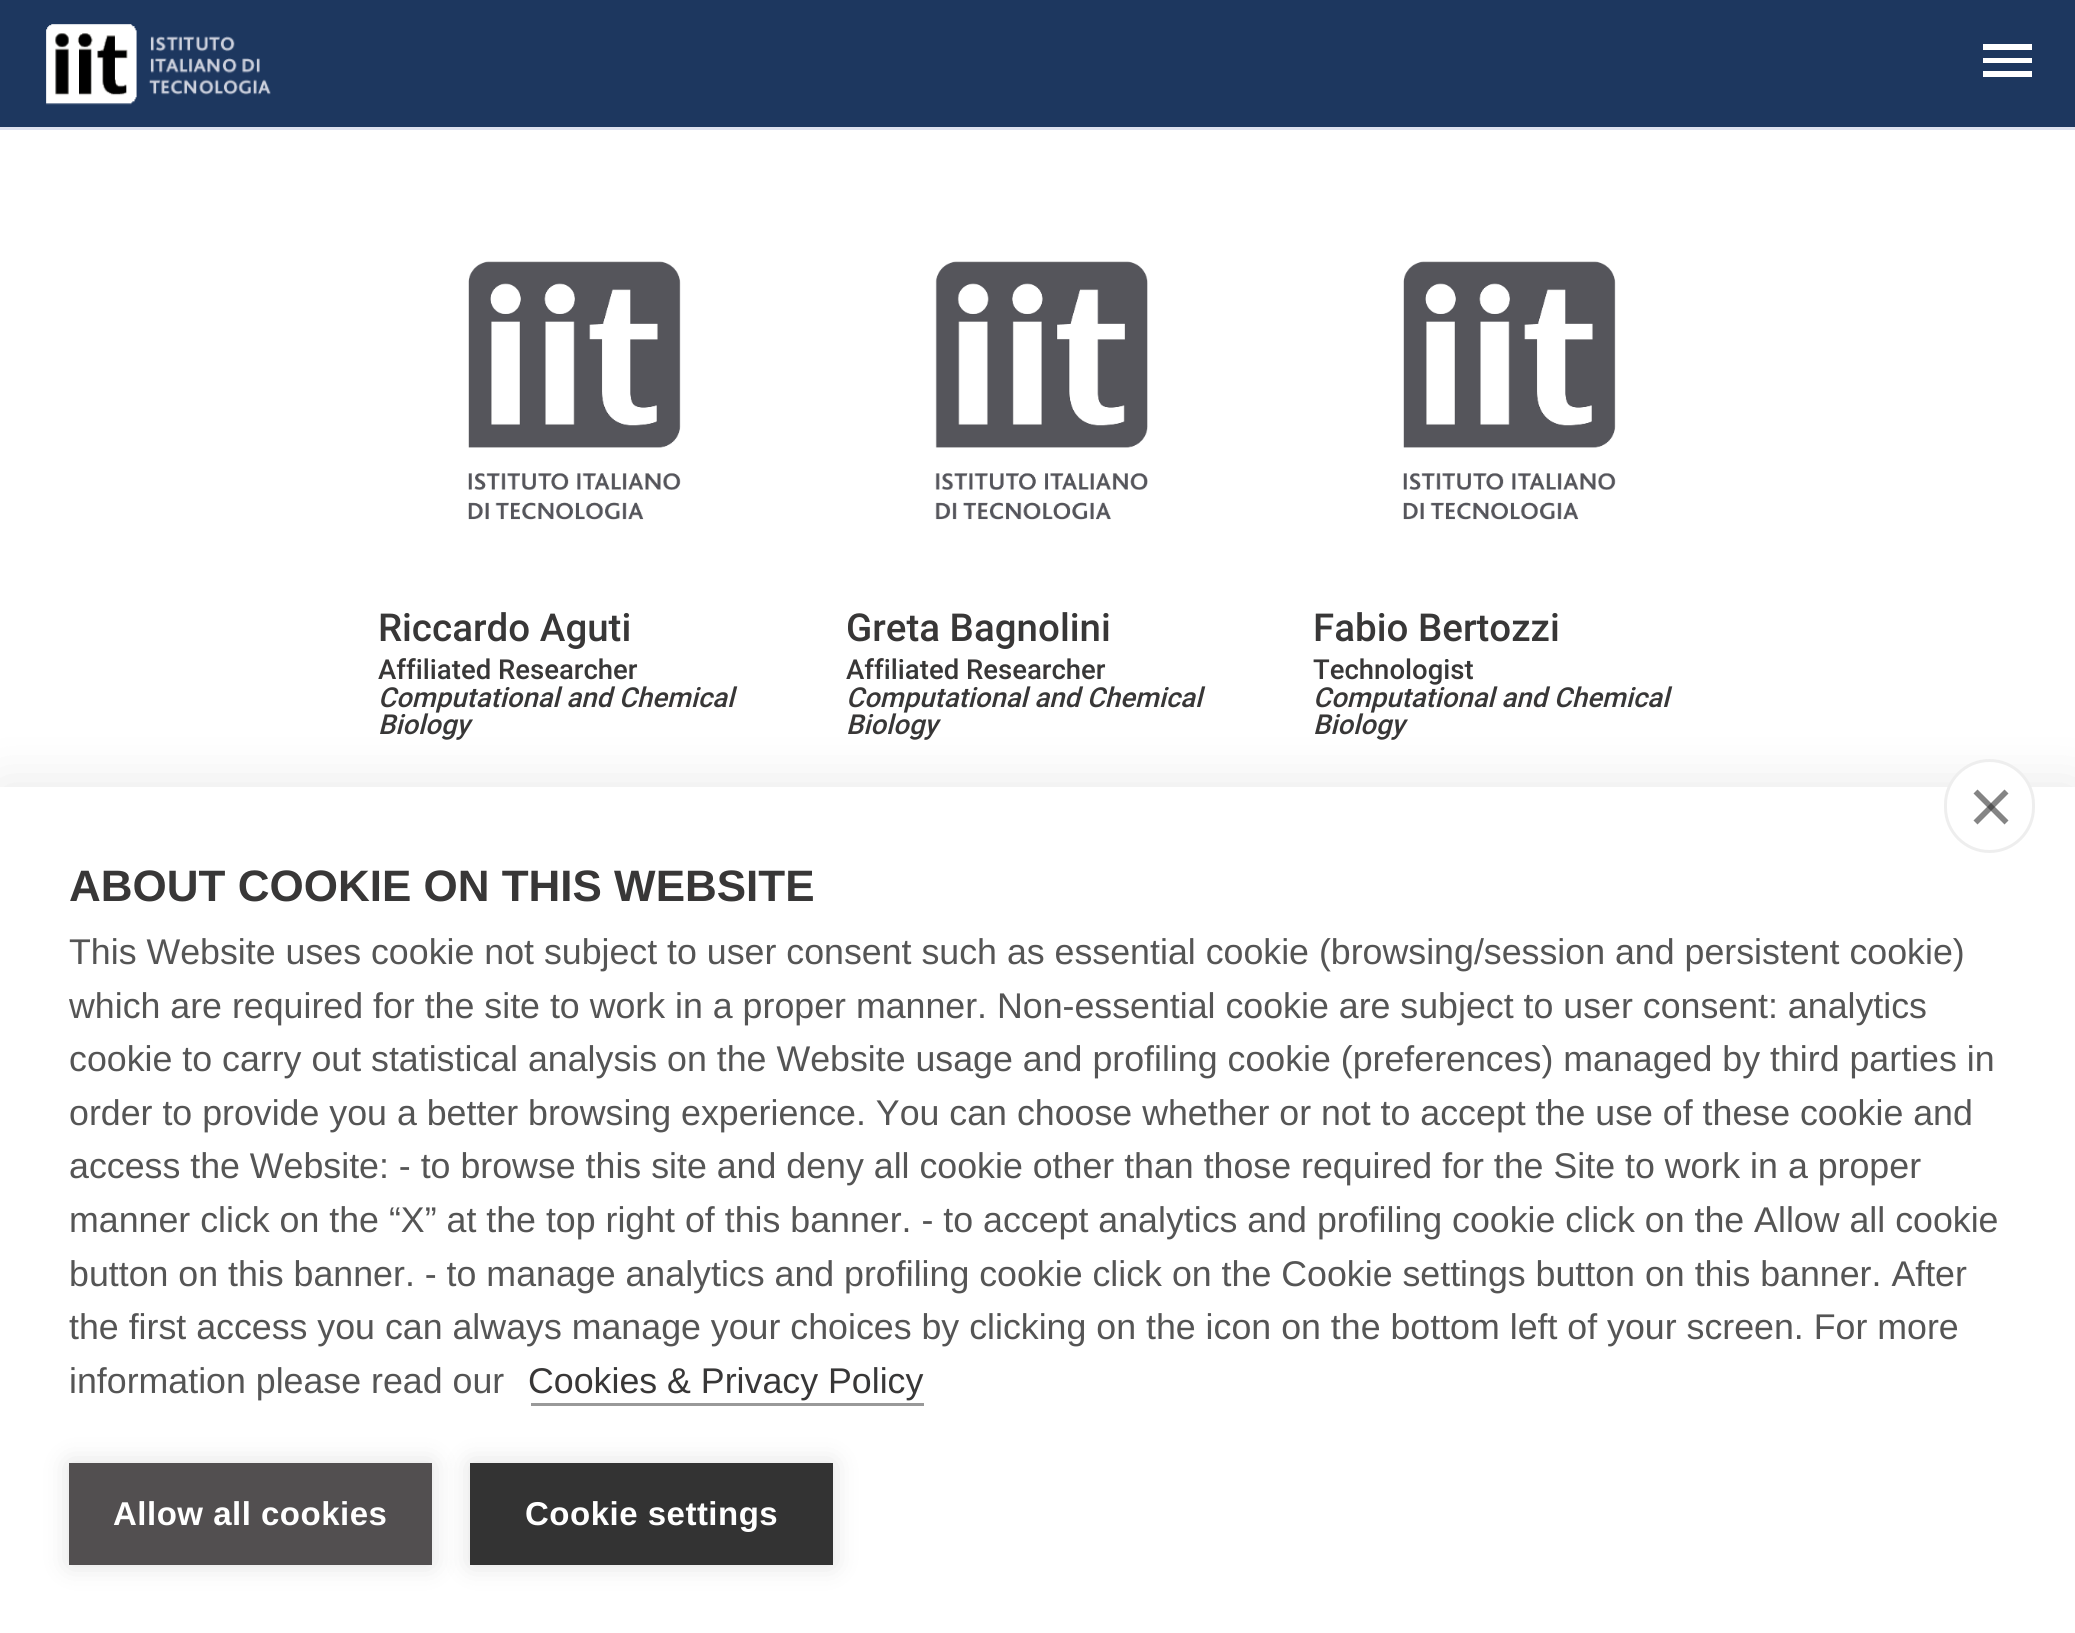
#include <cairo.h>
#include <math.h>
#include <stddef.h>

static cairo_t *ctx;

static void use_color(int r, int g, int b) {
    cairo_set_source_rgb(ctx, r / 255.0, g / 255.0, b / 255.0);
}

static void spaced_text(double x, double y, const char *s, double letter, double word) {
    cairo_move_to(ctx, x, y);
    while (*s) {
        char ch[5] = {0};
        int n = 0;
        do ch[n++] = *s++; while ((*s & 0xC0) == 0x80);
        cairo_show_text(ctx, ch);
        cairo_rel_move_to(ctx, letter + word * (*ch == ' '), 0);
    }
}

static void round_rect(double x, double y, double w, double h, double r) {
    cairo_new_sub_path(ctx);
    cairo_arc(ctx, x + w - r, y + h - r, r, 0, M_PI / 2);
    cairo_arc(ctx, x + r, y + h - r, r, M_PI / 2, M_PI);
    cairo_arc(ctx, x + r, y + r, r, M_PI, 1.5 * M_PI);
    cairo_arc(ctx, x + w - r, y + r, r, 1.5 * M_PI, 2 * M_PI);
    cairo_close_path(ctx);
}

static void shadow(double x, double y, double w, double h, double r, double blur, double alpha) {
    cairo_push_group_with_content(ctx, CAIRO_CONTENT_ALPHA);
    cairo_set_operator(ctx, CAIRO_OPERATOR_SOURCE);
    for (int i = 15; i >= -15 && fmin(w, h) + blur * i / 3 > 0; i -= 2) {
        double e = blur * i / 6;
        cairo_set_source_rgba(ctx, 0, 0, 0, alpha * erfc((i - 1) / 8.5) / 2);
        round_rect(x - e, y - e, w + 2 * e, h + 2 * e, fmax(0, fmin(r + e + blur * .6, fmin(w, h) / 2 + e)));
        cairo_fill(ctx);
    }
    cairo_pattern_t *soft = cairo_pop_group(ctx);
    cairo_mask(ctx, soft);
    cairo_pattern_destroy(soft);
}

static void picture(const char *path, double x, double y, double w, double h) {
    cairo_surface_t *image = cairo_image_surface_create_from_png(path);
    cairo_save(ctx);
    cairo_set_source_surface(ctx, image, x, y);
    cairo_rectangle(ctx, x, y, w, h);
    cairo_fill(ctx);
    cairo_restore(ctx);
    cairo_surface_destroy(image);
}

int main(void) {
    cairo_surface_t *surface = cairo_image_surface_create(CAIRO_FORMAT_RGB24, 2075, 1633);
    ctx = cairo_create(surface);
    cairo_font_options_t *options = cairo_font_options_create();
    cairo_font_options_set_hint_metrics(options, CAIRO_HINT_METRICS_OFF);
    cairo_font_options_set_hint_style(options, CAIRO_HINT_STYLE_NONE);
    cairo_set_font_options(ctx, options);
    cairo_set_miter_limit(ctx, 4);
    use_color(255, 255, 255);
    cairo_paint(ctx);
    use_color(29, 55, 95);
    cairo_rectangle(ctx, 0, 0, 2075, 127);
    cairo_fill(ctx);
    use_color(222, 226, 239);
    cairo_rectangle(ctx, 0, 127, 2075, 3);
    cairo_fill(ctx);
    picture("img1.png", 46, 24, 225, 81);
    use_color(255, 255, 255);
    cairo_new_path(ctx);
    cairo_move_to(ctx, 1983, 44);
    cairo_line_to(ctx, 2032, 44);
    cairo_line_to(ctx, 2032, 50);
    cairo_line_to(ctx, 1983, 50);
    cairo_close_path(ctx);
    cairo_move_to(ctx, 1983, 63);
    cairo_line_to(ctx, 1983, 58);
    cairo_line_to(ctx, 2032, 58);
    cairo_line_to(ctx, 2032, 63);
    cairo_close_path(ctx);
    cairo_move_to(ctx, 1983, 77);
    cairo_line_to(ctx, 1983, 71);
    cairo_line_to(ctx, 2032, 71);
    cairo_line_to(ctx, 2032, 77);
    cairo_close_path(ctx);
    cairo_fill(ctx);
    picture("img2.png", 468, 261, 213, 259);
    cairo_select_font_face(ctx, "Roboto Medium", CAIRO_FONT_SLANT_NORMAL, CAIRO_FONT_WEIGHT_NORMAL);
    cairo_set_font_size(ctx, 38.5);
    use_color(56, 55, 55);
    cairo_move_to(ctx, 378, 641);
    cairo_show_text(ctx, "Riccardo Aguti");
    cairo_set_font_size(ctx, 27.5);
    cairo_move_to(ctx, 378, 679);
    cairo_show_text(ctx, "Affiliated Researcher");
    cairo_select_font_face(ctx, "Roboto Medium", CAIRO_FONT_SLANT_ITALIC, CAIRO_FONT_WEIGHT_NORMAL);
    cairo_move_to(ctx, 378, 707);
    cairo_show_text(ctx, "Computational and Chemical");
    cairo_move_to(ctx, 378, 734);
    cairo_show_text(ctx, "Biology");
    picture("img3.png", 935, 261, 213, 259);
    cairo_select_font_face(ctx, "Roboto Medium", CAIRO_FONT_SLANT_NORMAL, CAIRO_FONT_WEIGHT_NORMAL);
    cairo_set_font_size(ctx, 38.5);
    cairo_move_to(ctx, 846, 641);
    cairo_show_text(ctx, "Greta Bagnolini");
    cairo_set_font_size(ctx, 27.5);
    cairo_move_to(ctx, 846, 679);
    cairo_show_text(ctx, "Affiliated Researcher");
    cairo_select_font_face(ctx, "Roboto Medium", CAIRO_FONT_SLANT_ITALIC, CAIRO_FONT_WEIGHT_NORMAL);
    cairo_move_to(ctx, 846, 707);
    cairo_show_text(ctx, "Computational and Chemical");
    cairo_move_to(ctx, 846, 734);
    cairo_show_text(ctx, "Biology");
    picture("img2.png", 1403, 261, 213, 259);
    cairo_select_font_face(ctx, "Roboto Medium", CAIRO_FONT_SLANT_NORMAL, CAIRO_FONT_WEIGHT_NORMAL);
    cairo_set_font_size(ctx, 38.5);
    cairo_move_to(ctx, 1313, 641);
    cairo_show_text(ctx, "Fabio Bertozzi");
    cairo_set_font_size(ctx, 27.5);
    cairo_move_to(ctx, 1313, 679);
    cairo_show_text(ctx, "Technologist");
    cairo_select_font_face(ctx, "Roboto Medium", CAIRO_FONT_SLANT_ITALIC, CAIRO_FONT_WEIGHT_NORMAL);
    cairo_move_to(ctx, 1313, 707);
    cairo_show_text(ctx, "Computational and Chemical");
    cairo_move_to(ctx, 1313, 734);
    cairo_show_text(ctx, "Biology");
    use_color(0, 0, 0);
    shadow(0, 787, 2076, 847, 0, 27.5, 0.1);
    use_color(255, 255, 255);
    cairo_rectangle(ctx, 0, 787, 2075, 846);
    cairo_fill(ctx);
    round_rect(1945.5, 760.5, 88, 91, 44);
    cairo_fill_preserve(ctx);
    use_color(238, 238, 238);
    cairo_set_line_width(ctx, 3);
    cairo_stroke(ctx);
    use_color(133, 133, 133);
    cairo_new_path(ctx);
    cairo_move_to(ctx, 1973.5, 820.5);
    cairo_line_to(ctx, 2004.5, 789.5);
    cairo_line_to(ctx, 2008.5, 793.5);
    cairo_line_to(ctx, 1977.5, 824.5);
    cairo_close_path(ctx);
    cairo_fill(ctx);
    cairo_set_source_rgba(ctx, 0.2, 0.2, 0.2, 0.6);
    cairo_new_path(ctx);
    cairo_move_to(ctx, 1977.5, 789.5);
    cairo_line_to(ctx, 2008.5, 820.5);
    cairo_line_to(ctx, 2004.5, 824.5);
    cairo_line_to(ctx, 1973.5, 793.5);
    cairo_close_path(ctx);
    cairo_fill(ctx);
    cairo_select_font_face(ctx, "Liberation Sans", CAIRO_FONT_SLANT_NORMAL, CAIRO_FONT_WEIGHT_BOLD);
    cairo_set_font_size(ctx, 44);
    use_color(56, 55, 55);
    cairo_move_to(ctx, 69, 901);
    cairo_show_text(ctx, "ABOUT COOKIE ON THIS WEBSITE");
    cairo_select_font_face(ctx, "Liberation Sans", CAIRO_FONT_SLANT_NORMAL, CAIRO_FONT_WEIGHT_NORMAL);
    cairo_set_font_size(ctx, 35.75);
    use_color(85, 85, 85);
    cairo_move_to(ctx, 69, 964);
    cairo_show_text(ctx, "This Website uses cookie not subject to user consent such as essential cookie (browsing/session and persistent cookie)");
    cairo_move_to(ctx, 69, 1018);
    cairo_show_text(ctx, "which are required for the site to work in a proper manner. Non-essential cookie are subject to user consent: analytics");
    cairo_move_to(ctx, 69, 1071);
    cairo_show_text(ctx, "cookie to carry out statistical analysis on the Website usage and profiling cookie (preferences) managed by third parties in");
    cairo_move_to(ctx, 69, 1125);
    cairo_show_text(ctx, "order to provide you a better browsing experience. You can choose whether or not to accept the use of these cookie and");
    cairo_move_to(ctx, 69, 1178);
    cairo_show_text(ctx, "access the Website: - to browse this site and deny all cookie other than those required for the Site to work in a proper");
    cairo_move_to(ctx, 69, 1232);
    cairo_show_text(ctx, "manner click on the “X” at the top right of this banner. - to accept analytics and profiling cookie click on the Allow all cookie");
    cairo_move_to(ctx, 69, 1286);
    cairo_show_text(ctx, "button on this banner. - to manage analytics and profiling cookie click on the Cookie settings button on this banner. After");
    cairo_move_to(ctx, 69, 1339);
    cairo_show_text(ctx, "the first access you can always manage your choices by clicking on the icon on the bottom left of your screen. For more");
    cairo_move_to(ctx, 69, 1393);
    cairo_show_text(ctx, "information please read our");
    use_color(56, 55, 55);
    cairo_move_to(ctx, 528, 1393);
    cairo_show_text(ctx, "Cookies & Privacy Policy");
    use_color(153, 153, 153);
    cairo_rectangle(ctx, 531, 1403, 393, 3);
    cairo_fill(ctx);
    use_color(0, 0, 0);
    shadow(69, 1463, 363, 102, 0, 14, 0.12);
    use_color(82, 79, 80);
    cairo_rectangle(ctx, 69, 1463, 363, 102);
    cairo_fill(ctx);
    cairo_select_font_face(ctx, "Liberation Sans", CAIRO_FONT_SLANT_NORMAL, CAIRO_FONT_WEIGHT_BOLD);
    cairo_set_font_size(ctx, 33);
    use_color(255, 255, 255);
    spaced_text(113, 1525, "Allow all cookies", 0.5, 0);
    use_color(0, 0, 0);
    shadow(470, 1463, 363, 102, 0, 14, 0.12);
    use_color(51, 51, 51);
    cairo_rectangle(ctx, 470, 1463, 363, 102);
    cairo_fill(ctx);
    use_color(255, 255, 255);
    spaced_text(525, 1525, "Cookie settings", 0.5, 0);
    cairo_surface_write_to_png(surface, "result.png");
    cairo_font_options_destroy(options);
    cairo_destroy(ctx);
    cairo_surface_destroy(surface);
    return 0;
}
